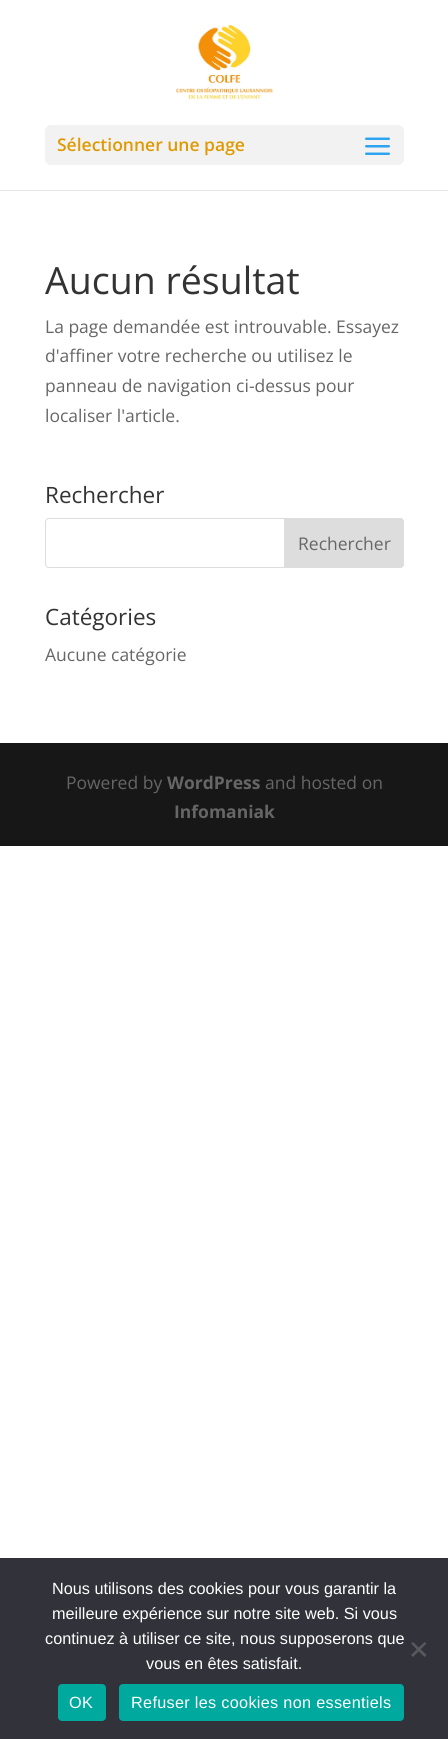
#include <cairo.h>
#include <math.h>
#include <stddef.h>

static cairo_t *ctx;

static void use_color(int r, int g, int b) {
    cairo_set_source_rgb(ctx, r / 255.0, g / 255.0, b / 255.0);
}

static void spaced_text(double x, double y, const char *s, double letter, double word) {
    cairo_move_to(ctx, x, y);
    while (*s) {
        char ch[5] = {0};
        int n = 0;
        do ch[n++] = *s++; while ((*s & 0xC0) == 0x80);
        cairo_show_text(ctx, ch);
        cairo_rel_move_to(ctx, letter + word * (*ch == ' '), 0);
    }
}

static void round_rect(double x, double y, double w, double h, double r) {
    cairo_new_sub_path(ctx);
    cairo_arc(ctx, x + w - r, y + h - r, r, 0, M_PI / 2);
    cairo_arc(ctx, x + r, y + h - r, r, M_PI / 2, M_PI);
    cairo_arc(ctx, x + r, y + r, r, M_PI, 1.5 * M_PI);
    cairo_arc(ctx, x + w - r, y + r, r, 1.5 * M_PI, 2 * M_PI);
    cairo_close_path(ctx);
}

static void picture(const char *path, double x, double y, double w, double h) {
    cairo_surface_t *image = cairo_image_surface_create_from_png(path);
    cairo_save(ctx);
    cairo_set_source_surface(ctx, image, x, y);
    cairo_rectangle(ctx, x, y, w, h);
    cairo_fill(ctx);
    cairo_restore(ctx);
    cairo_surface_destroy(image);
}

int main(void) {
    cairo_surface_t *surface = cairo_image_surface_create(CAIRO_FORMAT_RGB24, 448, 1739);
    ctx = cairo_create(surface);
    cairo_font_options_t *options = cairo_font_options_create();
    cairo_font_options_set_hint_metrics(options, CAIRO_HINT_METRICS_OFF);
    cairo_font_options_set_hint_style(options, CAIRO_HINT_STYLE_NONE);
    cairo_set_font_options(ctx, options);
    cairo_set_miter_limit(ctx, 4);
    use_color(255, 255, 255);
    cairo_paint(ctx);
    use_color(230, 230, 230);
    cairo_new_path(ctx);
    cairo_move_to(ctx, 0, 190);
    cairo_line_to(ctx, 0, 191);
    cairo_line_to(ctx, 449, 191);
    cairo_line_to(ctx, 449, 1);
    cairo_line_to(ctx, 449, 190);
    cairo_close_path(ctx);
    cairo_fill(ctx);
    picture("img1.png", 176, 25, 97, 75);
    use_color(242, 242, 242);
    round_rect(45, 125, 359, 40, 6);
    cairo_fill(ctx);
    cairo_select_font_face(ctx, "Open Sans SemiBold", CAIRO_FONT_SLANT_NORMAL, CAIRO_FONT_WEIGHT_NORMAL);
    cairo_set_font_size(ctx, 17.5);
    use_color(224, 153, 0);
    cairo_move_to(ctx, 57, 151);
    cairo_show_text(ctx, "Sélectionner une page");
    picture("img2.png", 365, 137, 25, 18);
    cairo_select_font_face(ctx, "Open Sans", CAIRO_FONT_SLANT_NORMAL, CAIRO_FONT_WEIGHT_NORMAL);
    cairo_set_font_size(ctx, 37.5);
    use_color(51, 51, 51);
    cairo_move_to(ctx, 45, 294);
    cairo_show_text(ctx, "Aucun résultat");
    cairo_set_font_size(ctx, 17.5);
    use_color(102, 102, 102);
    cairo_move_to(ctx, 45, 333);
    cairo_show_text(ctx, "La page demandée est introuvable. Essayez");
    cairo_move_to(ctx, 45, 362);
    cairo_show_text(ctx, "d'affiner votre recherche ou utilisez le");
    cairo_move_to(ctx, 45, 392);
    cairo_show_text(ctx, "panneau de navigation ci-dessus pour");
    cairo_move_to(ctx, 45, 422);
    cairo_show_text(ctx, "localiser l'article.");
    cairo_set_font_size(ctx, 22.5);
    use_color(51, 51, 51);
    cairo_move_to(ctx, 45, 503);
    cairo_show_text(ctx, "Rechercher");
    round_rect(45.5, 518.5, 358, 49, 3.5);
    use_color(221, 221, 221);
    cairo_set_line_width(ctx, 1);
    cairo_stroke(ctx);
    cairo_new_path(ctx);
    cairo_move_to(ctx, 284.5, 518.5);
    cairo_line_to(ctx, 400, 518.5);
    cairo_curve_to(ctx, 402, 518.5, 403.5, 520, 403.5, 522);
    cairo_line_to(ctx, 403.5, 564);
    cairo_curve_to(ctx, 403.5, 566, 402, 567.5, 400, 567.5);
    cairo_line_to(ctx, 284.5, 567.5);
    cairo_close_path(ctx);
    cairo_fill_preserve(ctx);
    cairo_stroke(ctx);
    cairo_set_font_size(ctx, 17.5);
    use_color(102, 102, 102);
    cairo_move_to(ctx, 298, 550);
    cairo_show_text(ctx, "Rechercher");
    cairo_set_font_size(ctx, 22.5);
    use_color(51, 51, 51);
    cairo_move_to(ctx, 45, 625);
    cairo_show_text(ctx, "Catégories");
    cairo_set_font_size(ctx, 17.5);
    use_color(102, 102, 102);
    cairo_move_to(ctx, 45, 661);
    cairo_show_text(ctx, "Aucune catégorie");
    use_color(23, 23, 23);
    cairo_rectangle(ctx, 0, 743, 448, 103);
    cairo_fill(ctx);
    use_color(102, 102, 102);
    cairo_move_to(ctx, 66, 789);
    cairo_show_text(ctx, "Powered by");
    cairo_select_font_face(ctx, "Open Sans", CAIRO_FONT_SLANT_NORMAL, CAIRO_FONT_WEIGHT_BOLD);
    cairo_move_to(ctx, 167, 789);
    cairo_show_text(ctx, "WordPress");
    cairo_select_font_face(ctx, "Open Sans", CAIRO_FONT_SLANT_NORMAL, CAIRO_FONT_WEIGHT_NORMAL);
    cairo_move_to(ctx, 265, 789);
    cairo_show_text(ctx, "and hosted on");
    cairo_select_font_face(ctx, "Open Sans", CAIRO_FONT_SLANT_NORMAL, CAIRO_FONT_WEIGHT_BOLD);
    cairo_move_to(ctx, 174, 818);
    cairo_show_text(ctx, "Infomaniak");
    use_color(50, 50, 58);
    cairo_rectangle(ctx, 0, 1558, 448, 181);
    cairo_fill(ctx);
    cairo_select_font_face(ctx, "Liberation Sans", CAIRO_FONT_SLANT_NORMAL, CAIRO_FONT_WEIGHT_NORMAL);
    cairo_set_font_size(ctx, 16.25);
    use_color(255, 255, 255);
    cairo_move_to(ctx, 52, 1594);
    cairo_show_text(ctx, "Nous utilisons des cookies pour vous garantir la");
    cairo_move_to(ctx, 52, 1619);
    cairo_show_text(ctx, "meilleure expérience sur notre site web. Si vous");
    cairo_move_to(ctx, 45, 1644);
    cairo_show_text(ctx, "continuez à utiliser ce site, nous supposerons que");
    cairo_move_to(ctx, 146, 1669);
    cairo_show_text(ctx, "vous en êtes satisfait.");
    use_color(89, 89, 93);
    cairo_new_path(ctx);
    cairo_move_to(ctx, 424.5, 1642);
    cairo_line_to(ctx, 426.5, 1643.5);
    cairo_line_to(ctx, 413, 1657);
    cairo_line_to(ctx, 411, 1655);
    cairo_close_path(ctx);
    cairo_fill(ctx);
    cairo_new_path(ctx);
    cairo_move_to(ctx, 411, 1643.5);
    cairo_line_to(ctx, 413, 1642);
    cairo_line_to(ctx, 426.5, 1655);
    cairo_line_to(ctx, 424.5, 1657);
    cairo_close_path(ctx);
    cairo_fill(ctx);
    use_color(0, 169, 157);
    round_rect(58, 1684, 48, 37, 4);
    cairo_fill(ctx);
    use_color(255, 255, 255);
    spaced_text(69, 1708, "OK", 0.3, 0);
    use_color(0, 169, 157);
    round_rect(119, 1684, 285, 37, 4);
    cairo_fill(ctx);
    use_color(255, 255, 255);
    spaced_text(131, 1708, "Refuser les cookies non essentiels", 0.3, 0);
    cairo_surface_write_to_png(surface, "result.png");
    cairo_font_options_destroy(options);
    cairo_destroy(ctx);
    cairo_surface_destroy(surface);
    return 0;
}
